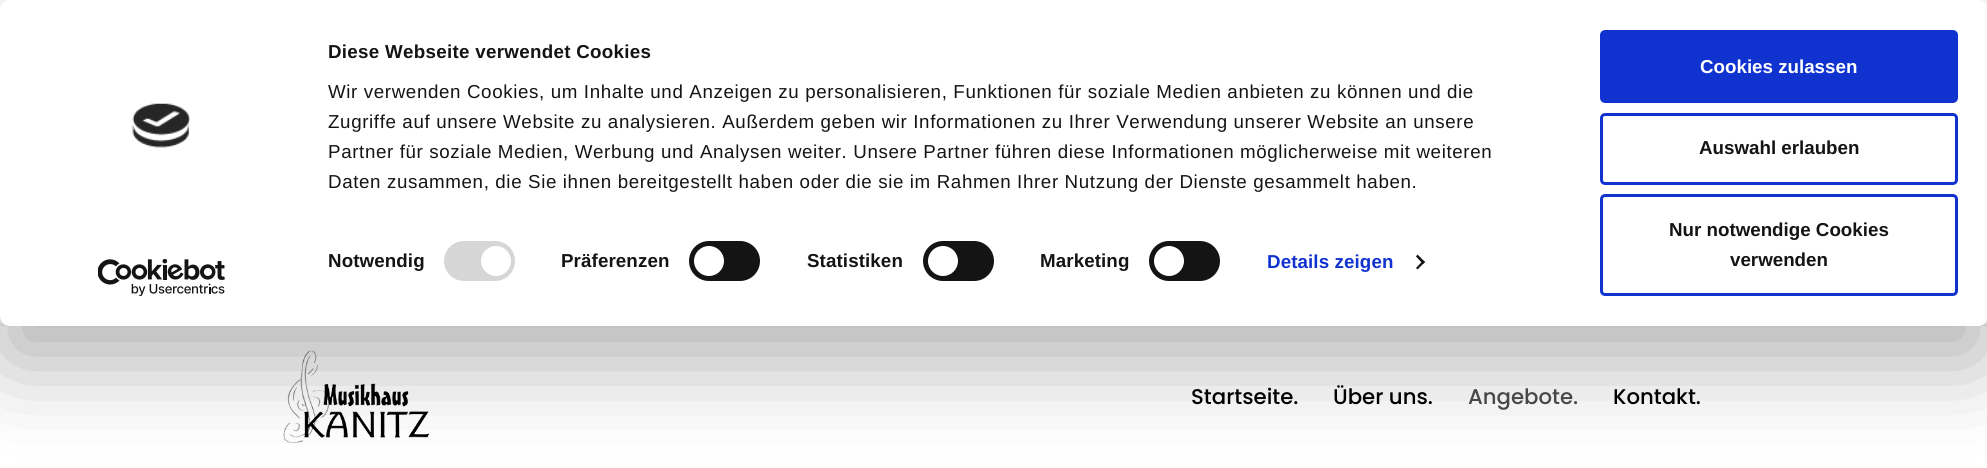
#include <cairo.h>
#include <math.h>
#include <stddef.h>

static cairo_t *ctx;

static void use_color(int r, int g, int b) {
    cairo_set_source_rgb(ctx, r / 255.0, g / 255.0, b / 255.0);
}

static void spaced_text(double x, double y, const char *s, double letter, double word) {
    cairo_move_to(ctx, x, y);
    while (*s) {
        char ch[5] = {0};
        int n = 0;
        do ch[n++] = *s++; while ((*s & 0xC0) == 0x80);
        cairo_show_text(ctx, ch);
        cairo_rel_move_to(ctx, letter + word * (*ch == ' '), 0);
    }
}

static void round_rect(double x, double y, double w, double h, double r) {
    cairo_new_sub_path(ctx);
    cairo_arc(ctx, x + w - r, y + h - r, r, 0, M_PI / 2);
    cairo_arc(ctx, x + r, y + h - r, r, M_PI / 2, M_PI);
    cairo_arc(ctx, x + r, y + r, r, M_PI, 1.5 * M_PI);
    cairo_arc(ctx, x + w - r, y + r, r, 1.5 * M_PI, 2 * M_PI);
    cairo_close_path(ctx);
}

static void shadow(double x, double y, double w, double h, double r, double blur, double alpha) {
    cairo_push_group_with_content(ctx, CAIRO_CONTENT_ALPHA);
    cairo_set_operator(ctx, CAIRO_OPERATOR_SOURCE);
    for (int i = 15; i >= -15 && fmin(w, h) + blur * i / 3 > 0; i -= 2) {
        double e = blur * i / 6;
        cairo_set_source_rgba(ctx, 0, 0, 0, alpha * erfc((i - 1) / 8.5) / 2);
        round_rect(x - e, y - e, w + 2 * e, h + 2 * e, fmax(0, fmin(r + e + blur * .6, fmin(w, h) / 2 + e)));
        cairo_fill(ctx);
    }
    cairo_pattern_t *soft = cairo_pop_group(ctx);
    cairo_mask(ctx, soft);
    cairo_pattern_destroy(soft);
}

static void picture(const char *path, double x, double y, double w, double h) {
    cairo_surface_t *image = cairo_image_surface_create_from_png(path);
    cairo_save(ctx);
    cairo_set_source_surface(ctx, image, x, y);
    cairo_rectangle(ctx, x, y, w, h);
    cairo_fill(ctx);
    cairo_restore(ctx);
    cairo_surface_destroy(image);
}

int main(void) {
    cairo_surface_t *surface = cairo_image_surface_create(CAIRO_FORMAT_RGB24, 1987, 468);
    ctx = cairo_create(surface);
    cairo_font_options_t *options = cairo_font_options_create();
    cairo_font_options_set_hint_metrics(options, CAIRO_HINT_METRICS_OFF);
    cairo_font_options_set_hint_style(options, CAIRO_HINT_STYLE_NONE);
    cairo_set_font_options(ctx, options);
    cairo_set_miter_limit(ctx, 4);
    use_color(255, 255, 255);
    cairo_paint(ctx);
    use_color(0, 0, 0);
    shadow(0, 325, 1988, 141, 0, 2, 0.1);
    use_color(255, 255, 255);
    cairo_rectangle(ctx, 0, 326, 1987, 142);
    cairo_fill(ctx);
    picture("img3.png", 283, 350, 146, 93);
    use_color(0, 0, 0);
    shadow(0, 38, 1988, 326, 10, 44, 0.3);
    use_color(255, 255, 255);
    round_rect(0, 0, 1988, 326, 10);
    cairo_fill(ctx);
    picture("img1.png", 132, 103, 58, 45);
    picture("img2.png", 98, 259, 127, 37);
    cairo_select_font_face(ctx, "Liberation Sans", CAIRO_FONT_SLANT_NORMAL, CAIRO_FONT_WEIGHT_BOLD);
    cairo_set_font_size(ctx, 18.75);
    use_color(20, 20, 20);
    spaced_text(328, 58, "Diese Webseite verwendet Cookies", 0.3, 0);
    cairo_select_font_face(ctx, "Liberation Sans", CAIRO_FONT_SLANT_NORMAL, CAIRO_FONT_WEIGHT_NORMAL);
    spaced_text(328, 98, "Wir verwenden Cookies, um Inhalte und Anzeigen zu personalisieren, Funktionen für soziale Medien anbieten zu können und die", 0.62, 0);
    spaced_text(328, 128, "Zugriffe auf unsere Website zu analysieren. Außerdem geben wir Informationen zu Ihrer Verwendung unserer Website an unsere", 0.62, 0);
    spaced_text(328, 158, "Partner für soziale Medien, Werbung und Analysen weiter. Unsere Partner führen diese Informationen möglicherweise mit weiteren", 0.62, 0);
    spaced_text(328, 188, "Daten zusammen, die Sie ihnen bereitgestellt haben oder die sie im Rahmen Ihrer Nutzung der Dienste gesammelt haben.", 0.62, 0);
    cairo_select_font_face(ctx, "Liberation Sans", CAIRO_FONT_SLANT_NORMAL, CAIRO_FONT_WEIGHT_BOLD);
    spaced_text(328, 267, "Notwendig", 0.1, 0);
    use_color(214, 214, 214);
    round_rect(444, 241, 71, 40, 20);
    cairo_fill(ctx);
    use_color(255, 255, 255);
    cairo_arc(ctx, 496, 261, 15, 0, 2 * M_PI);
    cairo_fill(ctx);
    use_color(20, 20, 20);
    spaced_text(561, 267, "Präferenzen", 0.1, 0);
    round_rect(689, 241, 71, 40, 20);
    cairo_fill(ctx);
    use_color(255, 255, 255);
    cairo_arc(ctx, 709, 261, 15, 0, 2 * M_PI);
    cairo_fill(ctx);
    use_color(20, 20, 20);
    spaced_text(807, 267, "Statistiken", 0.1, 0);
    round_rect(923, 241, 71, 40, 20);
    cairo_fill(ctx);
    use_color(255, 255, 255);
    cairo_arc(ctx, 943, 261, 15, 0, 2 * M_PI);
    cairo_fill(ctx);
    use_color(20, 20, 20);
    spaced_text(1040, 267, "Marketing", 0.1, 0);
    round_rect(1149, 241, 71, 40, 20);
    cairo_fill(ctx);
    use_color(255, 255, 255);
    cairo_arc(ctx, 1169, 261, 15, 0, 2 * M_PI);
    cairo_fill(ctx);
    use_color(16, 50, 207);
    spaced_text(1267, 268, "Details zeigen", 0.1, 0);
    use_color(20, 20, 20);
    cairo_new_path(ctx);
    cairo_move_to(ctx, 1417.5, 254.5);
    cairo_line_to(ctx, 1425, 262);
    cairo_line_to(ctx, 1423, 264);
    cairo_line_to(ctx, 1416, 256.5);
    cairo_close_path(ctx);
    cairo_fill(ctx);
    cairo_new_path(ctx);
    cairo_move_to(ctx, 1423, 260.5);
    cairo_line_to(ctx, 1425, 262);
    cairo_line_to(ctx, 1417.5, 269.5);
    cairo_line_to(ctx, 1416, 268);
    cairo_close_path(ctx);
    cairo_fill(ctx);
    use_color(16, 50, 207);
    round_rect(1601.5, 31.5, 355, 70, 3.5);
    cairo_fill_preserve(ctx);
    cairo_set_line_width(ctx, 3);
    cairo_stroke(ctx);
    use_color(255, 255, 255);
    cairo_move_to(ctx, 1700, 73);
    cairo_show_text(ctx, "Cookies zulassen");
    round_rect(1601.5, 114.5, 355, 69, 3.5);
    use_color(16, 50, 207);
    cairo_stroke(ctx);
    use_color(20, 20, 20);
    cairo_move_to(ctx, 1699, 154);
    cairo_show_text(ctx, "Auswahl erlauben");
    round_rect(1601.5, 195.5, 355, 99, 3.5);
    use_color(16, 50, 207);
    cairo_stroke(ctx);
    use_color(20, 20, 20);
    cairo_move_to(ctx, 1669, 236);
    cairo_show_text(ctx, "Nur notwendige Cookies");
    cairo_move_to(ctx, 1730, 266);
    cairo_show_text(ctx, "verwenden");
    cairo_select_font_face(ctx, "Poppins Medium", CAIRO_FONT_SLANT_NORMAL, CAIRO_FONT_WEIGHT_NORMAL);
    cairo_set_font_size(ctx, 21.25);
    use_color(0, 0, 0);
    cairo_move_to(ctx, 1191, 404);
    cairo_show_text(ctx, "Startseite.");
    cairo_move_to(ctx, 1333, 404);
    cairo_show_text(ctx, "Über uns.");
    use_color(71, 71, 71);
    cairo_move_to(ctx, 1468, 404);
    cairo_show_text(ctx, "Angebote.");
    use_color(0, 0, 0);
    cairo_move_to(ctx, 1613, 404);
    cairo_show_text(ctx, "Kontakt.");
    cairo_surface_write_to_png(surface, "result.png");
    cairo_font_options_destroy(options);
    cairo_destroy(ctx);
    cairo_surface_destroy(surface);
    return 0;
}
